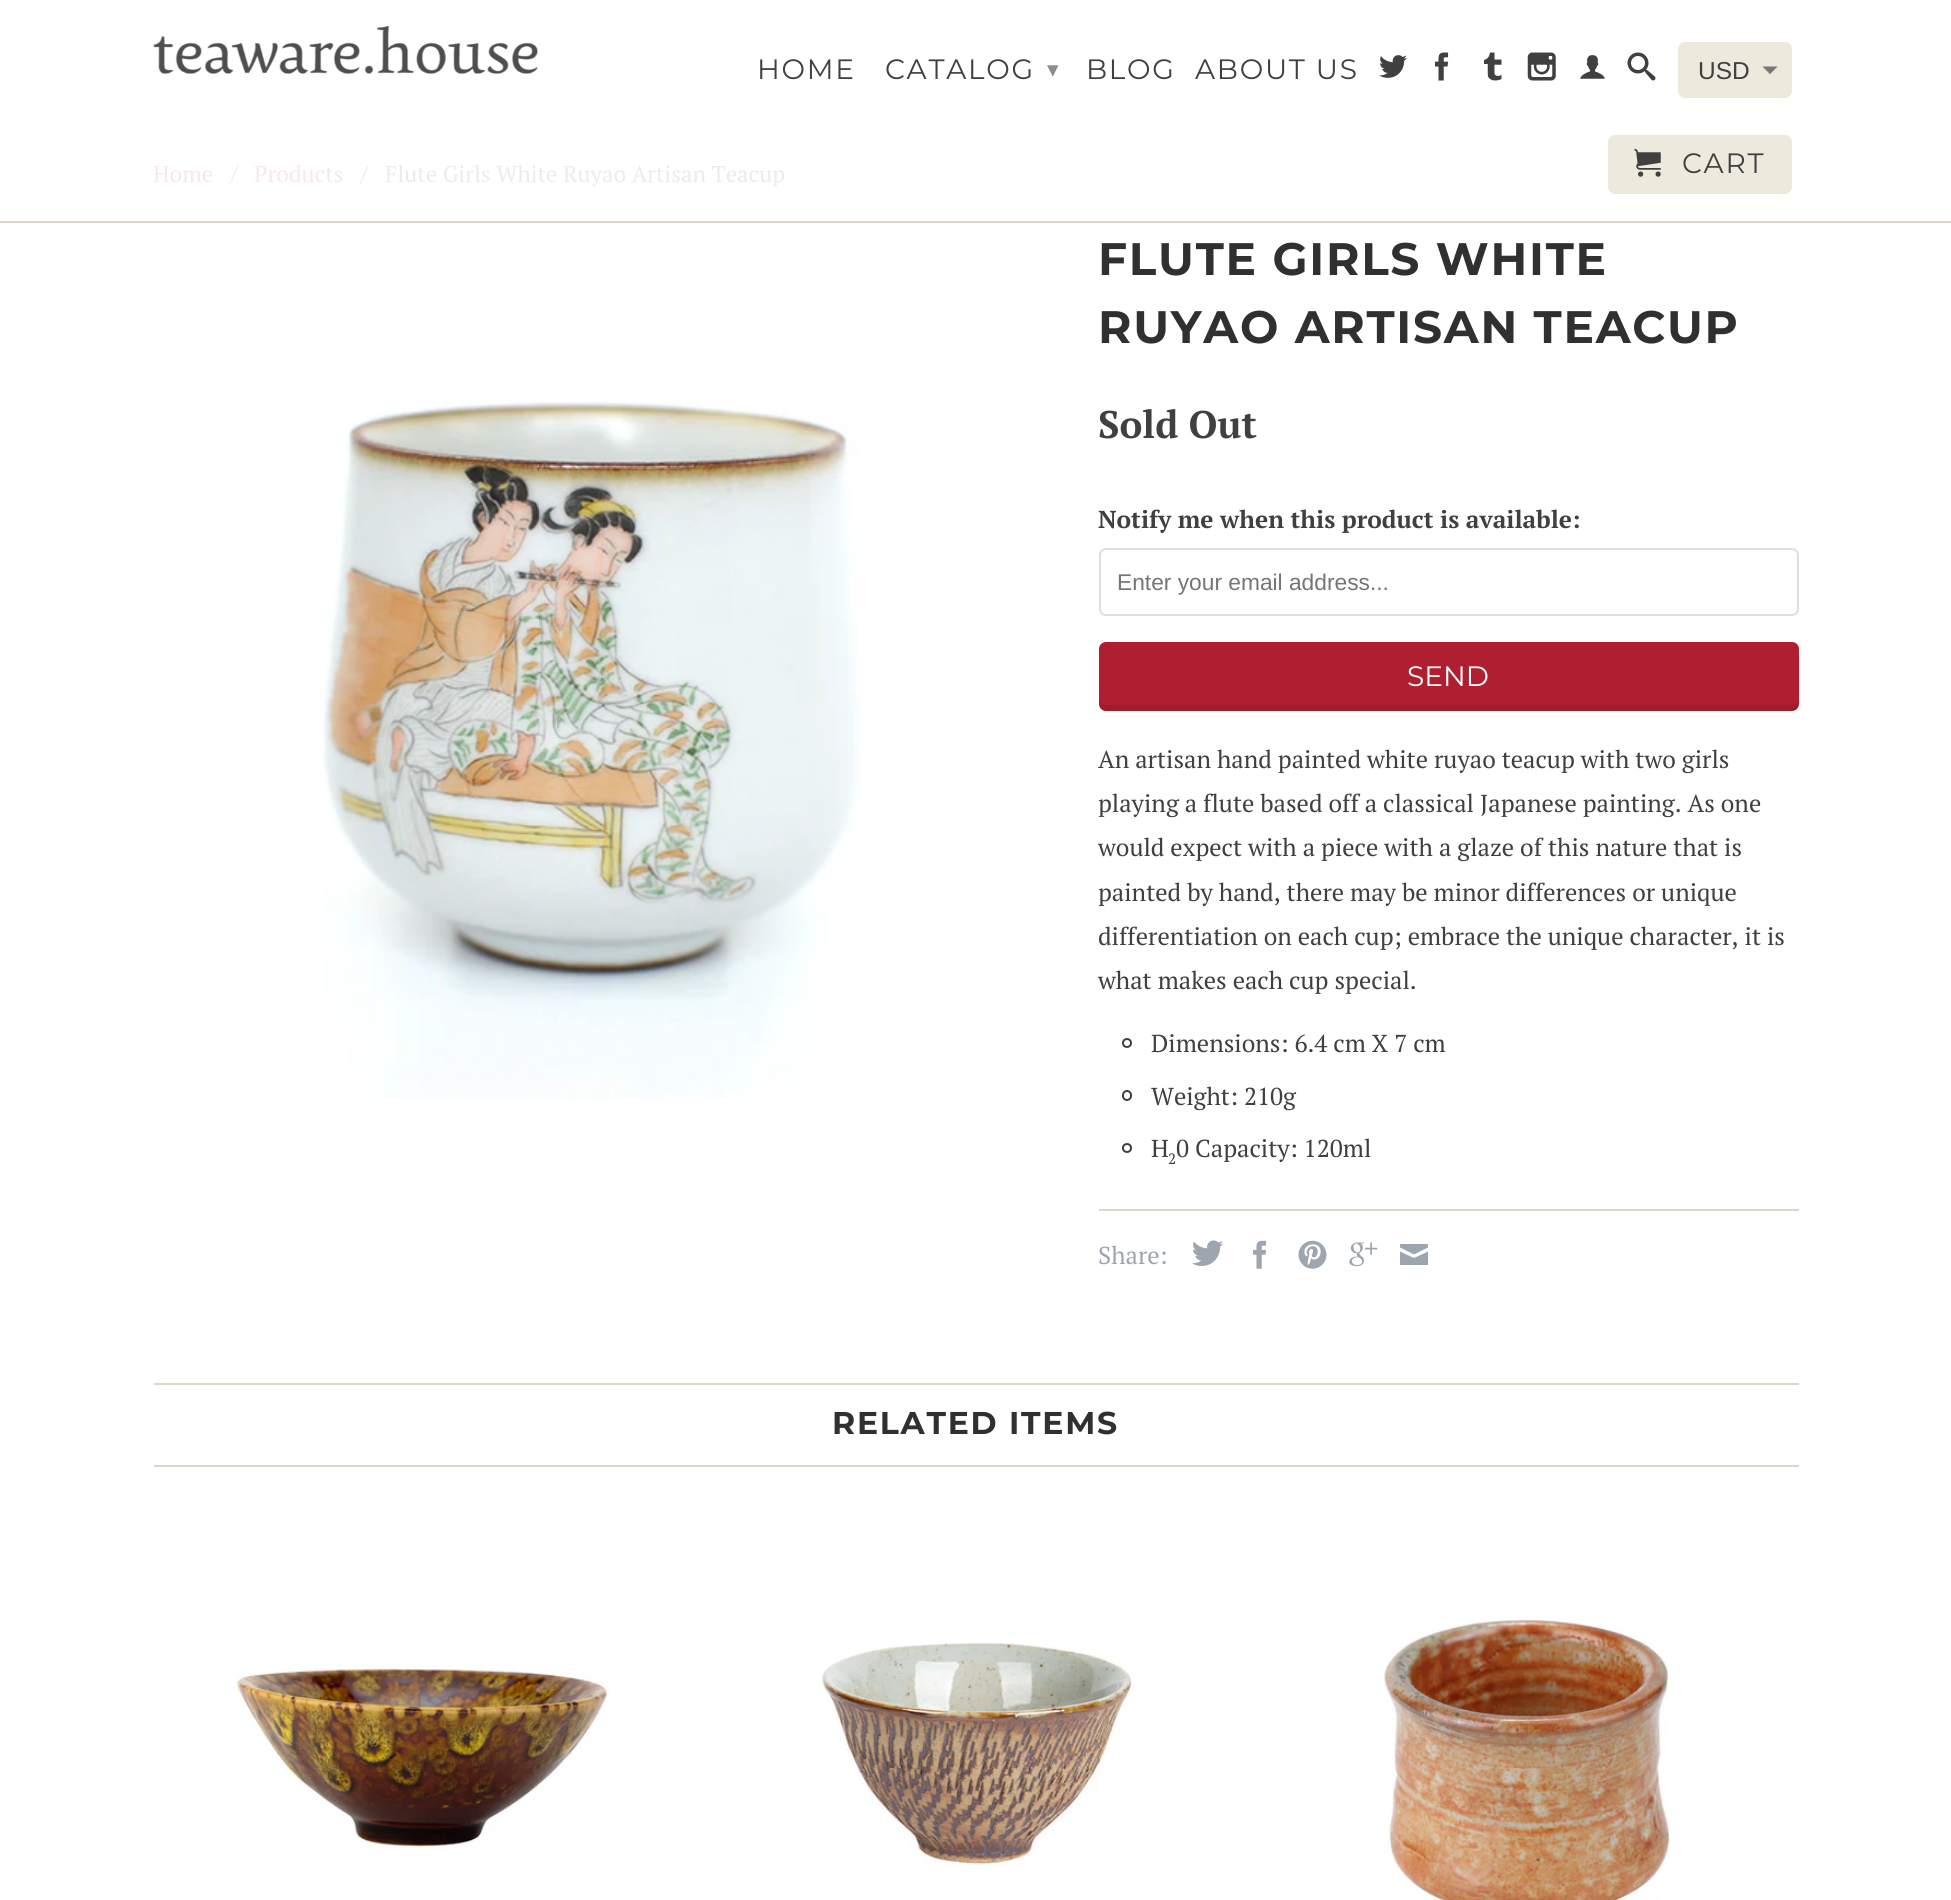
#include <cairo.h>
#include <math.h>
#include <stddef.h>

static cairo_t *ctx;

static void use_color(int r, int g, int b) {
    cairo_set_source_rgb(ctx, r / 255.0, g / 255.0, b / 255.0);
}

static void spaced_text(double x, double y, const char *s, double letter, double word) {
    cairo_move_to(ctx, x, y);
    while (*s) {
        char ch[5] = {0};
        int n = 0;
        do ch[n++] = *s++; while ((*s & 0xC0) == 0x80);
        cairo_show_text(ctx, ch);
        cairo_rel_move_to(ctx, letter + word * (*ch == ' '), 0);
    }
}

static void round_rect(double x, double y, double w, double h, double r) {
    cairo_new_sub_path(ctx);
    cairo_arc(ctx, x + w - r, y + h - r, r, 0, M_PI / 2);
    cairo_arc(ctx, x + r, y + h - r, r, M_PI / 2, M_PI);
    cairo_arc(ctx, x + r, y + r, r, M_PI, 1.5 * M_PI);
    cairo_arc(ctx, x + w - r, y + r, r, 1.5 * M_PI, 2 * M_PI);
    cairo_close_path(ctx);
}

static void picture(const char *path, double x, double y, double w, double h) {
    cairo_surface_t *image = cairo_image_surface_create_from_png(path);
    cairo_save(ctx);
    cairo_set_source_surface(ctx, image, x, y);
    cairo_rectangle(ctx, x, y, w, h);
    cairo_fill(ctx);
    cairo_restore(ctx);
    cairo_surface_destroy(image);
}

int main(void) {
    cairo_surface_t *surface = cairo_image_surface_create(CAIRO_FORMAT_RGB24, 1951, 1900);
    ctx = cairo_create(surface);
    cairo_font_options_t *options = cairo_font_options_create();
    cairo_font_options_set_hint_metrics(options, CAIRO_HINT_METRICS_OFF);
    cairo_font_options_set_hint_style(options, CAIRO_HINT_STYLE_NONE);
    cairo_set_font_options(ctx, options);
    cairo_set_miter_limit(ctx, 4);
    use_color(255, 255, 255);
    cairo_paint(ctx);
    use_color(222, 214, 199);
    cairo_rectangle(ctx, 0, 221, 1951, 2);
    cairo_fill(ctx);
    picture("img1.png", 153, 26, 385, 48);
    cairo_select_font_face(ctx, "Montserrat", CAIRO_FONT_SLANT_NORMAL, CAIRO_FONT_WEIGHT_NORMAL);
    cairo_set_font_size(ctx, 28);
    use_color(64, 64, 64);
    spaced_text(757, 79, "HOME", 1.75, 0);
    spaced_text(885, 79, "CATALOG", 1.75, 0);
    cairo_select_font_face(ctx, "DejaVu Sans", CAIRO_FONT_SLANT_NORMAL, CAIRO_FONT_WEIGHT_NORMAL);
    cairo_set_font_size(ctx, 23);
    use_color(140, 140, 140);
    spaced_text(1047, 77, "▾", 1.75, 0);
    cairo_select_font_face(ctx, "Montserrat", CAIRO_FONT_SLANT_NORMAL, CAIRO_FONT_WEIGHT_NORMAL);
    cairo_set_font_size(ctx, 28);
    use_color(64, 64, 64);
    spaced_text(1086, 79, "BLOG", 1.75, 0);
    spaced_text(1195, 79, "ABOUT US", 1.75, 0);
    picture("img2.png", 1379, 55, 28, 23);
    picture("img3.png", 1435, 52, 14, 29);
    picture("img4.png", 1484, 52, 18, 29);
    picture("img5.png", 1527, 52, 29, 29);
    picture("img6.png", 1580, 55, 25, 24);
    picture("img7.png", 1627, 52, 29, 29);
    use_color(237, 233, 221);
    round_rect(1678, 42, 114, 56, 7);
    cairo_fill(ctx);
    picture("img8.png", 1762, 66, 16, 9);
    cairo_select_font_face(ctx, "Liberation Sans", CAIRO_FONT_SLANT_NORMAL, CAIRO_FONT_WEIGHT_NORMAL);
    cairo_set_font_size(ctx, 24.5);
    use_color(64, 64, 64);
    cairo_move_to(ctx, 1698, 79);
    cairo_show_text(ctx, "USD");
    use_color(237, 233, 221);
    round_rect(1608, 135, 184, 59, 7);
    cairo_fill(ctx);
    picture("img9.png", 1634, 148, 27, 29);
    cairo_select_font_face(ctx, "Montserrat", CAIRO_FONT_SLANT_NORMAL, CAIRO_FONT_WEIGHT_NORMAL);
    cairo_set_font_size(ctx, 28);
    use_color(64, 64, 64);
    spaced_text(1682, 173, "CART", 1.75, 0);
    cairo_select_font_face(ctx, "PT Serif", CAIRO_FONT_SLANT_NORMAL, CAIRO_FONT_WEIGHT_NORMAL);
    cairo_set_font_size(ctx, 22.75);
    use_color(247, 233, 234);
    cairo_move_to(ctx, 153, 182);
    cairo_show_text(ctx, "Home");
    use_color(236, 236, 236);
    cairo_move_to(ctx, 230, 182);
    cairo_show_text(ctx, "/");
    use_color(247, 233, 234);
    cairo_move_to(ctx, 254, 182);
    cairo_show_text(ctx, "Products");
    use_color(236, 236, 236);
    cairo_move_to(ctx, 360, 182);
    cairo_show_text(ctx, "/");
    cairo_move_to(ctx, 385, 182);
    cairo_show_text(ctx, "Flute Girls White Ruyao Artisan Teacup");
    picture("img10.png", 323, 401, 537, 698);
    cairo_select_font_face(ctx, "Montserrat", CAIRO_FONT_SLANT_NORMAL, CAIRO_FONT_WEIGHT_BOLD);
    cairo_set_font_size(ctx, 45.5);
    use_color(48, 48, 48);
    spaced_text(1098, 275, "FLUTE GIRLS WHITE", 1.75, 0);
    spaced_text(1098, 343, "RUYAO ARTISAN TEACUP", 1.75, 0);
    cairo_select_font_face(ctx, "PT Serif", CAIRO_FONT_SLANT_NORMAL, CAIRO_FONT_WEIGHT_BOLD);
    cairo_set_font_size(ctx, 38.5);
    use_color(64, 64, 64);
    cairo_move_to(ctx, 1098, 438);
    cairo_show_text(ctx, "Sold Out");
    cairo_set_font_size(ctx, 24.5);
    cairo_move_to(ctx, 1098, 528);
    cairo_show_text(ctx, "Notify me when this product is available:");
    round_rect(1100, 549, 698, 66, 6);
    use_color(220, 224, 224);
    cairo_stroke(ctx);
    cairo_select_font_face(ctx, "Liberation Sans", CAIRO_FONT_SLANT_NORMAL, CAIRO_FONT_WEIGHT_NORMAL);
    cairo_set_font_size(ctx, 22.75);
    use_color(117, 117, 117);
    cairo_move_to(ctx, 1117, 590);
    cairo_show_text(ctx, "Enter your email address...");
    use_color(175, 31, 49);
    round_rect(1099, 642, 700, 69, 7);
    cairo_fill(ctx);
    cairo_set_source_rgba(ctx, 0, 0, 0, 0.1);
    cairo_new_path(ctx);
    cairo_move_to(ctx, 1099, 698);
    cairo_curve_to(ctx, 1099, 703, 1099, 711, 1106, 711);
    cairo_line_to(ctx, 1792, 711);
    cairo_curve_to(ctx, 1799, 711, 1799, 703, 1799, 698);
    cairo_curve_to(ctx, 1799, 702, 1796, 705, 1792, 705);
    cairo_line_to(ctx, 1106, 705);
    cairo_curve_to(ctx, 1102, 705, 1099, 702, 1099, 698);
    cairo_close_path(ctx);
    cairo_fill(ctx);
    cairo_select_font_face(ctx, "Montserrat", CAIRO_FONT_SLANT_NORMAL, CAIRO_FONT_WEIGHT_NORMAL);
    cairo_set_font_size(ctx, 28);
    use_color(255, 255, 255);
    cairo_move_to(ctx, 1407, 686);
    cairo_show_text(ctx, "SEND");
    cairo_select_font_face(ctx, "PT Serif", CAIRO_FONT_SLANT_NORMAL, CAIRO_FONT_WEIGHT_NORMAL);
    cairo_set_font_size(ctx, 24.5);
    use_color(64, 64, 64);
    cairo_move_to(ctx, 1098, 768);
    cairo_show_text(ctx, "An artisan hand painted white ruyao teacup with two girls");
    cairo_move_to(ctx, 1098, 812);
    cairo_show_text(ctx, "playing a flute based off a classical Japanese painting. As one");
    cairo_move_to(ctx, 1098, 856);
    cairo_show_text(ctx, "would expect with a piece with a glaze of this nature that is");
    cairo_move_to(ctx, 1098, 901);
    cairo_show_text(ctx, "painted by hand, there may be minor differences or unique");
    cairo_move_to(ctx, 1098, 945);
    cairo_show_text(ctx, "differentiation on each cup; embrace the unique character, it is");
    cairo_move_to(ctx, 1098, 989);
    cairo_show_text(ctx, "what makes each cup special.");
    cairo_new_path(ctx);
    cairo_arc(ctx, 1127, 1043, 4, 0, 2 * M_PI);
    cairo_stroke(ctx);
    cairo_move_to(ctx, 1151, 1052);
    cairo_show_text(ctx, "Dimensions: 6.4 cm X 7 cm");
    round_rect(1123, 1091, 8, 9, 4);
    cairo_stroke(ctx);
    cairo_move_to(ctx, 1151, 1105);
    cairo_show_text(ctx, "Weight: 210g");
    cairo_new_path(ctx);
    cairo_arc(ctx, 1127, 1148, 4, 0, 2 * M_PI);
    cairo_stroke(ctx);
    cairo_move_to(ctx, 1151, 1157);
    cairo_show_text(ctx, "H");
    cairo_move_to(ctx, 1176, 1157);
    cairo_show_text(ctx, "0 Capacity: 120ml");
    cairo_set_font_size(ctx, 15);
    cairo_move_to(ctx, 1168, 1164);
    cairo_show_text(ctx, "2");
    use_color(222, 214, 199);
    cairo_rectangle(ctx, 1099, 1209, 700, 2);
    cairo_fill(ctx);
    cairo_set_font_size(ctx, 24.5);
    use_color(157, 166, 174);
    cairo_move_to(ctx, 1098, 1264);
    cairo_show_text(ctx, "Share:");
    cairo_new_path(ctx);
    cairo_move_to(ctx, 1414, 1254.5);
    cairo_line_to(ctx, 1400, 1247.5);
    cairo_line_to(ctx, 1400, 1244);
    cairo_line_to(ctx, 1428, 1244);
    cairo_line_to(ctx, 1428, 1247.5);
    cairo_close_path(ctx);
    cairo_move_to(ctx, 1414, 1258);
    cairo_line_to(ctx, 1428, 1251.5);
    cairo_line_to(ctx, 1428, 1265);
    cairo_line_to(ctx, 1400, 1265);
    cairo_line_to(ctx, 1400, 1251.5);
    cairo_close_path(ctx);
    cairo_fill(ctx);
    picture("img11.png", 1192, 1240, 31, 26);
    picture("img12.png", 1253, 1240, 14, 29);
    picture("img13.png", 1298, 1240, 29, 29);
    picture("img14.png", 1349, 1242, 29, 25);
    use_color(222, 214, 199);
    cairo_rectangle(ctx, 154, 1383, 1645, 2);
    cairo_fill(ctx);
    cairo_rectangle(ctx, 154, 1465, 1645, 2);
    cairo_fill(ctx);
    cairo_select_font_face(ctx, "Montserrat", CAIRO_FONT_SLANT_NORMAL, CAIRO_FONT_WEIGHT_BOLD);
    cairo_set_font_size(ctx, 31.5);
    use_color(48, 48, 48);
    spaced_text(832, 1434, "RELATED ITEMS", 1.75, 0);
    picture("img15.png", 233, 1664, 376, 184);
    picture("img16.png", 821, 1643, 313, 223);
    picture("img17.png", 1383, 1619, 288, 281);
    cairo_surface_write_to_png(surface, "result.png");
    cairo_font_options_destroy(options);
    cairo_destroy(ctx);
    cairo_surface_destroy(surface);
    return 0;
}
